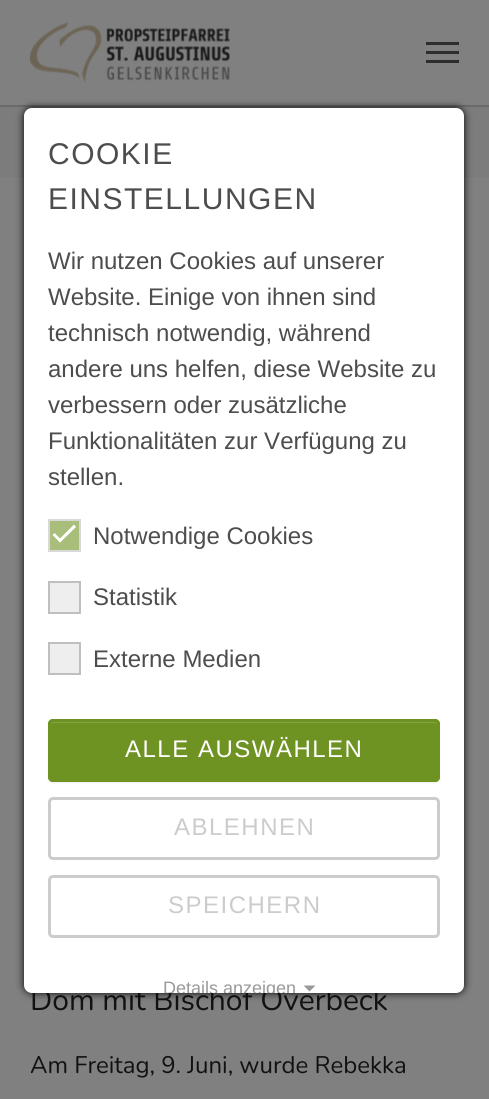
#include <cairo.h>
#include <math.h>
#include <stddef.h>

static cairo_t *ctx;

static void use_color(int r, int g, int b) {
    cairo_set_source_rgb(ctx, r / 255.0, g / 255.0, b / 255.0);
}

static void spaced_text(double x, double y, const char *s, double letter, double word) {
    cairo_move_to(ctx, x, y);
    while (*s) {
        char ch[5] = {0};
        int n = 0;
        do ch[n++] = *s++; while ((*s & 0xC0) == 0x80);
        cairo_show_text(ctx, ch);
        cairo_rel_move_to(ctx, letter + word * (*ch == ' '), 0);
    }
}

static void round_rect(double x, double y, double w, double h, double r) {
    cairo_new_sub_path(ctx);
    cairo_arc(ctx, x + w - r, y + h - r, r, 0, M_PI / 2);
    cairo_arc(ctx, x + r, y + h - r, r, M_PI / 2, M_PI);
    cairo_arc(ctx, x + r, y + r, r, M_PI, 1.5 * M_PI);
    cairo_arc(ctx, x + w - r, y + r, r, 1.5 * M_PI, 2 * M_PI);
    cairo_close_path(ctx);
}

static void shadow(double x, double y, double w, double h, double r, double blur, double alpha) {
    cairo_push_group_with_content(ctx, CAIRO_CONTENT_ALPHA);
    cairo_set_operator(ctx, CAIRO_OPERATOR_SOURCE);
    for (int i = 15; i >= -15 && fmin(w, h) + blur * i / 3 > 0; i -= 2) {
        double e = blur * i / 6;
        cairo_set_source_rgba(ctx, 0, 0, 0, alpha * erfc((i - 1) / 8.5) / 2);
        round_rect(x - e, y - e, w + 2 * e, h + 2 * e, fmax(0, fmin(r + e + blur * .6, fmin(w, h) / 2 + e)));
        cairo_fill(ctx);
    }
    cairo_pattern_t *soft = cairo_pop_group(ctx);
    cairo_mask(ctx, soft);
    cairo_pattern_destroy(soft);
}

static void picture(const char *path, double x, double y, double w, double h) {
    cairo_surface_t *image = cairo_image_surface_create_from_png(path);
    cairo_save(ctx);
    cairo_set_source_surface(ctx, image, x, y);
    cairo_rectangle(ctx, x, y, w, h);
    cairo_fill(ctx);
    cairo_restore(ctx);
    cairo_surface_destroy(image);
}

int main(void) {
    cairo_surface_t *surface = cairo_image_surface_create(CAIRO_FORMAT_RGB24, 489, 1099);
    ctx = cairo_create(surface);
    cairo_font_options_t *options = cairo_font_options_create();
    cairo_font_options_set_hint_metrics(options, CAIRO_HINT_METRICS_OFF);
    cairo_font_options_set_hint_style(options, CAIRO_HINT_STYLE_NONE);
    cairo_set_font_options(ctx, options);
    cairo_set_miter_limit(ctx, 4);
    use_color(128, 128, 128);
    cairo_paint(ctx);
    use_color(106, 106, 106);
    cairo_rectangle(ctx, 0, 105, 489, 2);
    cairo_fill(ctx);
    use_color(124, 124, 124);
    cairo_rectangle(ctx, 0, 107, 489, 70);
    cairo_fill(ctx);
    use_color(0, 0, 0);
    shadow(24, 108, 440, 885, 8, 4, 1);
    cairo_select_font_face(ctx, "Nunito", CAIRO_FONT_SLANT_NORMAL, CAIRO_FONT_WEIGHT_NORMAL);
    cairo_set_font_size(ctx, 30);
    use_color(17, 17, 17);
    cairo_move_to(ctx, 30, 1010);
    cairo_show_text(ctx, "Dom mit Bischof Overbeck");
    use_color(255, 255, 255);
    round_rect(24, 108, 440, 885, 8);
    cairo_fill(ctx);
    cairo_select_font_face(ctx, "Liberation Sans", CAIRO_FONT_SLANT_NORMAL, CAIRO_FONT_WEIGHT_NORMAL);
    use_color(77, 77, 77);
    spaced_text(48, 164, "COOKIE", 1.5, 0);
    spaced_text(48, 209, "EINSTELLUNGEN", 1.5, 0);
    cairo_set_font_size(ctx, 24);
    cairo_move_to(ctx, 48, 269);
    cairo_show_text(ctx, "Wir nutzen Cookies auf unserer");
    cairo_move_to(ctx, 48, 305);
    cairo_show_text(ctx, "Website. Einige von ihnen sind");
    cairo_move_to(ctx, 48, 341);
    cairo_show_text(ctx, "technisch notwendig, während");
    cairo_move_to(ctx, 48, 377);
    cairo_show_text(ctx, "andere uns helfen, diese Website zu");
    cairo_move_to(ctx, 48, 413);
    cairo_show_text(ctx, "verbessern oder zusätzliche");
    cairo_move_to(ctx, 48, 449);
    cairo_show_text(ctx, "Funktionalitäten zur Verfügung zu");
    cairo_move_to(ctx, 48, 485);
    cairo_show_text(ctx, "stellen.");
    use_color(169, 190, 122);
    cairo_rectangle(ctx, 49, 520, 31, 31);
    cairo_fill_preserve(ctx);
    use_color(217, 217, 217);
    cairo_stroke(ctx);
    use_color(255, 255, 255);
    cairo_new_path(ctx);
    cairo_move_to(ctx, 74, 524.5);
    cairo_line_to(ctx, 76, 527);
    cairo_line_to(ctx, 60, 542.5);
    cairo_line_to(ctx, 58, 540.5);
    cairo_close_path(ctx);
    cairo_fill(ctx);
    cairo_new_path(ctx);
    cairo_move_to(ctx, 54.5, 533);
    cairo_line_to(ctx, 62, 540.5);
    cairo_line_to(ctx, 60, 542.5);
    cairo_line_to(ctx, 52.5, 535);
    cairo_close_path(ctx);
    cairo_fill(ctx);
    use_color(77, 77, 77);
    cairo_move_to(ctx, 93, 544);
    cairo_show_text(ctx, "Notwendige Cookies");
    use_color(238, 238, 238);
    cairo_rectangle(ctx, 49, 582, 31, 31);
    cairo_fill_preserve(ctx);
    use_color(191, 191, 191);
    cairo_stroke(ctx);
    use_color(77, 77, 77);
    cairo_move_to(ctx, 93, 605);
    cairo_show_text(ctx, "Statistik");
    use_color(238, 238, 238);
    cairo_rectangle(ctx, 49, 643, 31, 31);
    cairo_fill_preserve(ctx);
    use_color(191, 191, 191);
    cairo_stroke(ctx);
    use_color(77, 77, 77);
    cairo_move_to(ctx, 93, 667);
    cairo_show_text(ctx, "Externe Medien");
    use_color(0, 0, 0);
    shadow(48, 720, 392, 63, 5, 1, 0.07);
    use_color(111, 147, 34);
    round_rect(48, 719, 392, 63, 5);
    cairo_fill(ctx);
    use_color(133, 163, 67);
    cairo_new_path(ctx);
    cairo_move_to(ctx, 53, 723);
    cairo_line_to(ctx, 435, 723);
    cairo_line_to(ctx, 437, 724);
    cairo_curve_to(ctx, 437, 723, 437, 722, 436, 722);
    cairo_line_to(ctx, 52, 722);
    cairo_curve_to(ctx, 51, 722, 51, 723, 51, 724);
    cairo_close_path(ctx);
    cairo_fill(ctx);
    round_rect(49.5, 720.5, 389, 60, 3.5);
    use_color(111, 147, 34);
    cairo_set_line_width(ctx, 3);
    cairo_stroke(ctx);
    use_color(255, 255, 255);
    spaced_text(125, 757, "ALLE AUSWÄHLEN", 1.5, 0);
    round_rect(49.5, 798.5, 389, 60, 3.5);
    use_color(204, 204, 204);
    cairo_stroke(ctx);
    spaced_text(174, 835, "ABLEHNEN", 1.5, 0);
    round_rect(49.5, 876.5, 389, 60, 3.5);
    cairo_stroke(ctx);
    spaced_text(168, 913, "SPEICHERN", 1.5, 0);
    cairo_save(ctx);
    round_rect(24, 108, 440, 885, 8);
    cairo_clip(ctx);
    cairo_set_font_size(ctx, 18);
    use_color(153, 153, 153);
    cairo_move_to(ctx, 163, 994);
    cairo_show_text(ctx, "Details anzeigen");
    cairo_restore(ctx);
    use_color(153, 153, 153);
    cairo_new_path(ctx);
    cairo_move_to(ctx, 303.5, 985.5);
    cairo_line_to(ctx, 315.5, 985.5);
    cairo_line_to(ctx, 309.5, 991.5);
    cairo_close_path(ctx);
    cairo_fill(ctx);
    picture("img1.png", 30, 22, 200, 61);
    use_color(45, 45, 45);
    cairo_rectangle(ctx, 426, 51, 33, 3);
    cairo_fill(ctx);
    cairo_rectangle(ctx, 426, 42, 33, 3);
    cairo_fill(ctx);
    cairo_rectangle(ctx, 426, 60, 33, 3);
    cairo_fill(ctx);
    cairo_select_font_face(ctx, "Nunito", CAIRO_FONT_SLANT_NORMAL, CAIRO_FONT_WEIGHT_NORMAL);
    use_color(17, 17, 17);
    cairo_move_to(ctx, 30, 1073);
    cairo_show_text(ctx, "Am Freitag, 9. Juni, wurde Rebekka");
    cairo_surface_write_to_png(surface, "result.png");
    cairo_font_options_destroy(options);
    cairo_destroy(ctx);
    cairo_surface_destroy(surface);
    return 0;
}
